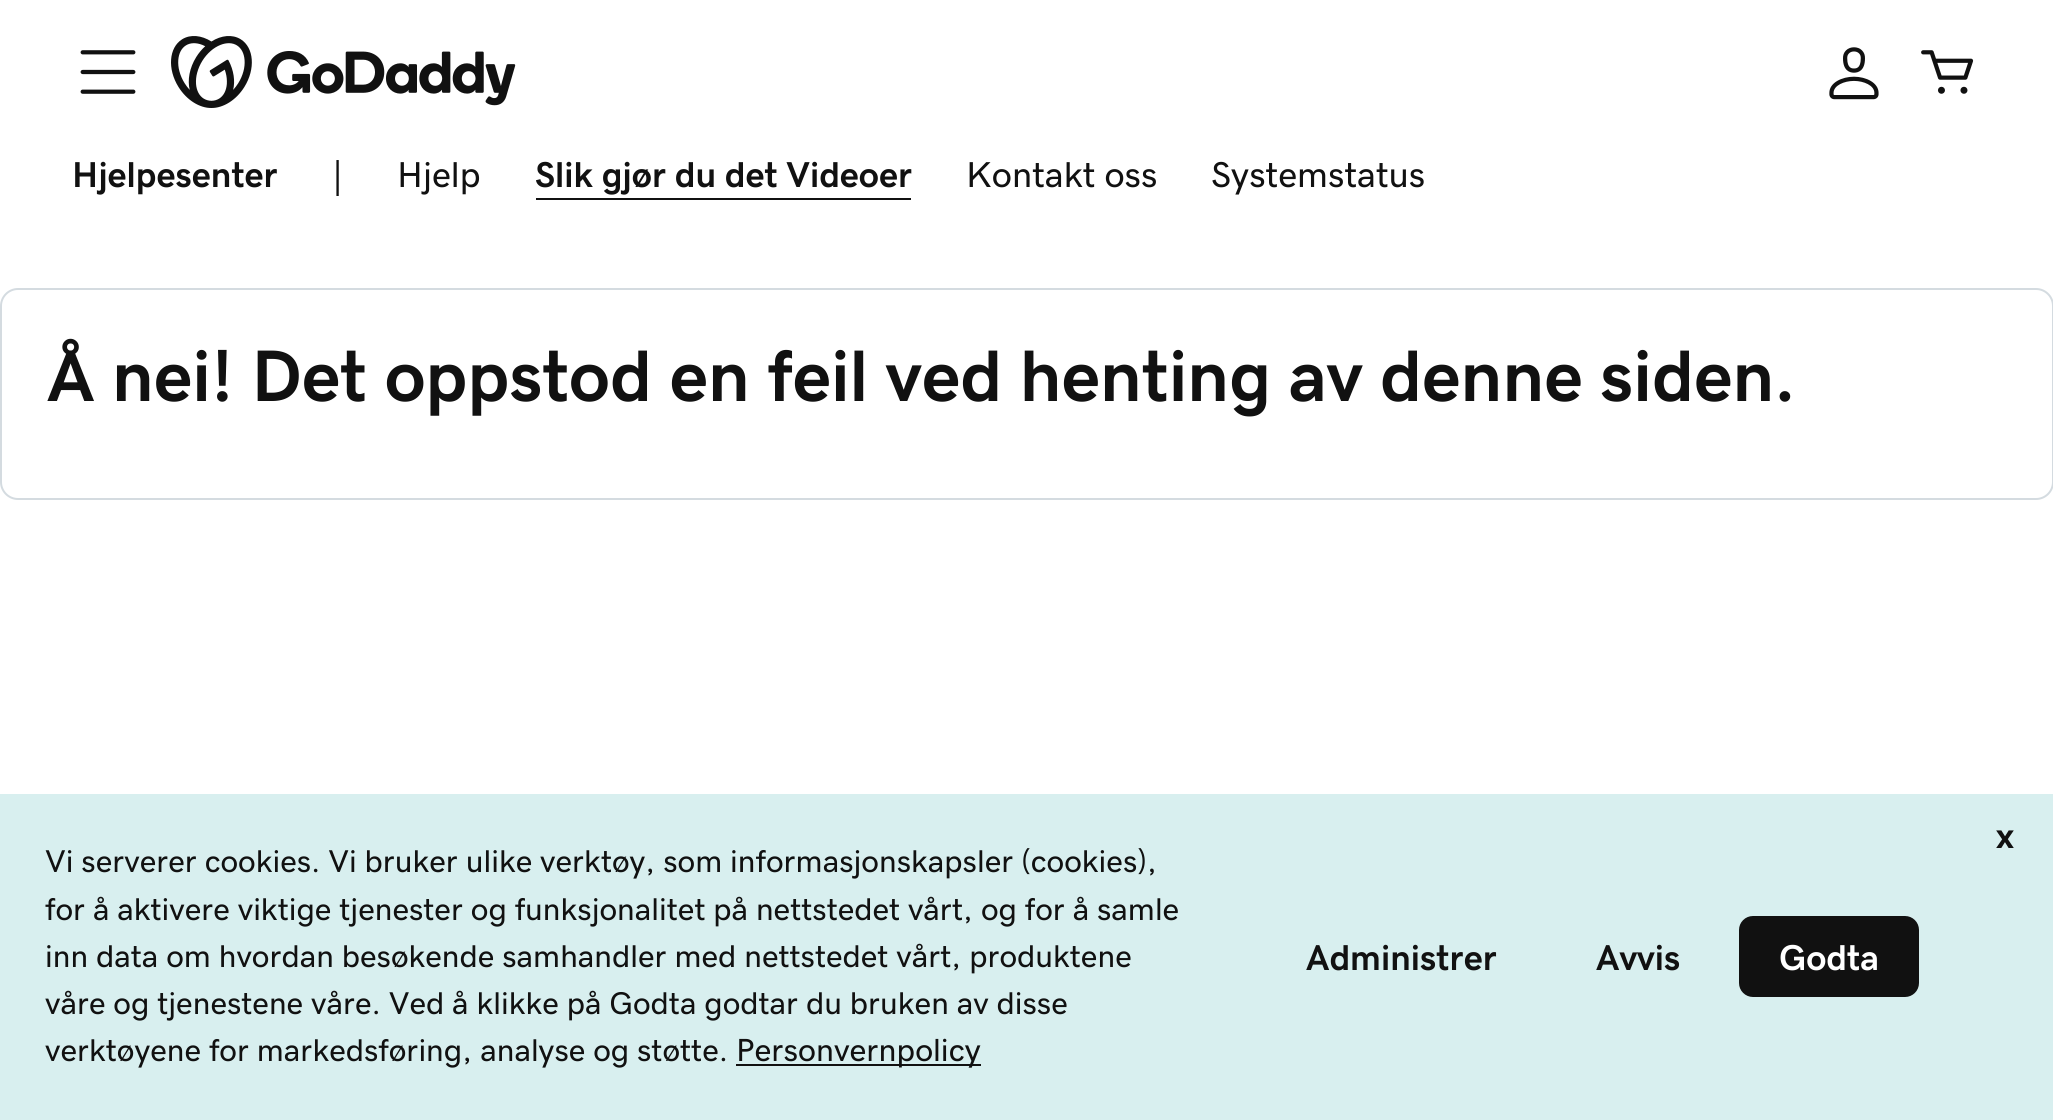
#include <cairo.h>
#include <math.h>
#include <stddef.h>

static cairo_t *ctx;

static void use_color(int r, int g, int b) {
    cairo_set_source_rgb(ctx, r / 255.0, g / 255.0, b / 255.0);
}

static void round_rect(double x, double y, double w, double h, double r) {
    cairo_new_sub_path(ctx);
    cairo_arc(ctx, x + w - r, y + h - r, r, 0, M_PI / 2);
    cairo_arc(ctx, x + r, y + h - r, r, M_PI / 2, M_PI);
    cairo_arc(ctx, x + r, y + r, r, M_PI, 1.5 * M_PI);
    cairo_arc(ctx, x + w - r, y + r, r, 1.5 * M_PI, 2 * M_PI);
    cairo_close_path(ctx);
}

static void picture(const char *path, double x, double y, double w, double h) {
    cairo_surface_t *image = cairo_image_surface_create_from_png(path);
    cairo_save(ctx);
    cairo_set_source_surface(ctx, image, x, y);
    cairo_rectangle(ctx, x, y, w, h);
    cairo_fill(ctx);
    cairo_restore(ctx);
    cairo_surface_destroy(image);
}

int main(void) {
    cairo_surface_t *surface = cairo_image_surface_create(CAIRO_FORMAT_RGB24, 2053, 1120);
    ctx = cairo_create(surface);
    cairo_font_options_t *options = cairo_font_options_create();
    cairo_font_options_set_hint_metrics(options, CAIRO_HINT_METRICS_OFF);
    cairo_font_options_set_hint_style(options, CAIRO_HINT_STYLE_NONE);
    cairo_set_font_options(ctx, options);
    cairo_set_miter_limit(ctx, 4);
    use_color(255, 255, 255);
    cairo_paint(ctx);
    picture("img1.png", 80, 50, 56, 44);
    picture("img2.png", 171, 36, 345, 72);
    picture("img3.png", 1829, 47, 50, 53);
    picture("img4.png", 1921, 50, 53, 44);
    cairo_select_font_face(ctx, "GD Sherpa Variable", CAIRO_FONT_SLANT_NORMAL, CAIRO_FONT_WEIGHT_BOLD);
    cairo_set_font_size(ctx, 36);
    use_color(17, 17, 17);
    cairo_move_to(ctx, 72, 187);
    cairo_show_text(ctx, "Hjelpesenter");
    cairo_select_font_face(ctx, "GD Sherpa Variable", CAIRO_FONT_SLANT_NORMAL, CAIRO_FONT_WEIGHT_NORMAL);
    cairo_move_to(ctx, 332, 187);
    cairo_show_text(ctx, "|");
    cairo_move_to(ctx, 397, 187);
    cairo_show_text(ctx, "Hjelp");
    cairo_select_font_face(ctx, "GD Sherpa Variable", CAIRO_FONT_SLANT_NORMAL, CAIRO_FONT_WEIGHT_BOLD);
    cairo_move_to(ctx, 535, 187);
    cairo_show_text(ctx, "Slik gjør du det Videoer");
    cairo_rectangle(ctx, 536, 198, 375, 2);
    cairo_fill(ctx);
    cairo_select_font_face(ctx, "GD Sherpa Variable", CAIRO_FONT_SLANT_NORMAL, CAIRO_FONT_WEIGHT_NORMAL);
    cairo_move_to(ctx, 966, 187);
    cairo_show_text(ctx, "Kontakt oss");
    cairo_move_to(ctx, 1211, 187);
    cairo_show_text(ctx, "Systemstatus");
    round_rect(1, 289, 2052, 210, 17);
    use_color(212, 219, 224);
    cairo_stroke(ctx);
    cairo_select_font_face(ctx, "GD Sherpa Variable ExtraBold", CAIRO_FONT_SLANT_NORMAL, CAIRO_FONT_WEIGHT_NORMAL);
    cairo_set_font_size(ctx, 73);
    use_color(17, 17, 17);
    cairo_move_to(ctx, 47, 401);
    cairo_show_text(ctx, "Å nei! Det oppstod en feil ved henting av denne siden.");
    use_color(216, 239, 239);
    cairo_rectangle(ctx, 0, 794, 2053, 326);
    cairo_fill(ctx);
    cairo_select_font_face(ctx, "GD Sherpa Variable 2", CAIRO_FONT_SLANT_NORMAL, CAIRO_FONT_WEIGHT_BOLD);
    cairo_set_font_size(ctx, 36);
    use_color(17, 17, 17);
    cairo_move_to(ctx, 1996, 848);
    cairo_show_text(ctx, "x");
    cairo_select_font_face(ctx, "GD Sherpa Variable", CAIRO_FONT_SLANT_NORMAL, CAIRO_FONT_WEIGHT_NORMAL);
    cairo_set_font_size(ctx, 31.5);
    cairo_move_to(ctx, 45, 872);
    cairo_show_text(ctx, "Vi serverer cookies. Vi bruker ulike verktøy, som informasjonskapsler (cookies),");
    cairo_move_to(ctx, 45, 920);
    cairo_show_text(ctx, "for å aktivere viktige tjenester og funksjonalitet på nettstedet vårt, og for å samle");
    cairo_move_to(ctx, 45, 967);
    cairo_show_text(ctx, "inn data om hvordan besøkende samhandler med nettstedet vårt, produktene");
    cairo_move_to(ctx, 45, 1014);
    cairo_show_text(ctx, "våre og tjenestene våre. Ved å klikke på Godta godtar du bruken av disse");
    cairo_move_to(ctx, 45, 1061);
    cairo_show_text(ctx, "verktøyene for markedsføring, analyse og støtte.");
    cairo_rectangle(ctx, 736, 1064, 245, 2);
    cairo_fill(ctx);
    cairo_set_font_size(ctx, 32);
    cairo_move_to(ctx, 736, 1061);
    cairo_show_text(ctx, "Personvernpolicy");
    cairo_select_font_face(ctx, "GD Sherpa Variable 2", CAIRO_FONT_SLANT_NORMAL, CAIRO_FONT_WEIGHT_BOLD);
    cairo_set_font_size(ctx, 36);
    cairo_move_to(ctx, 1306, 970);
    cairo_show_text(ctx, "Administrer");
    cairo_move_to(ctx, 1596, 970);
    cairo_show_text(ctx, "Avvis");
    round_rect(1739, 916, 180, 81, 14);
    cairo_fill(ctx);
    use_color(255, 255, 255);
    cairo_move_to(ctx, 1779, 970);
    cairo_show_text(ctx, "Godta");
    cairo_surface_write_to_png(surface, "result.png");
    cairo_font_options_destroy(options);
    cairo_destroy(ctx);
    cairo_surface_destroy(surface);
    return 0;
}
